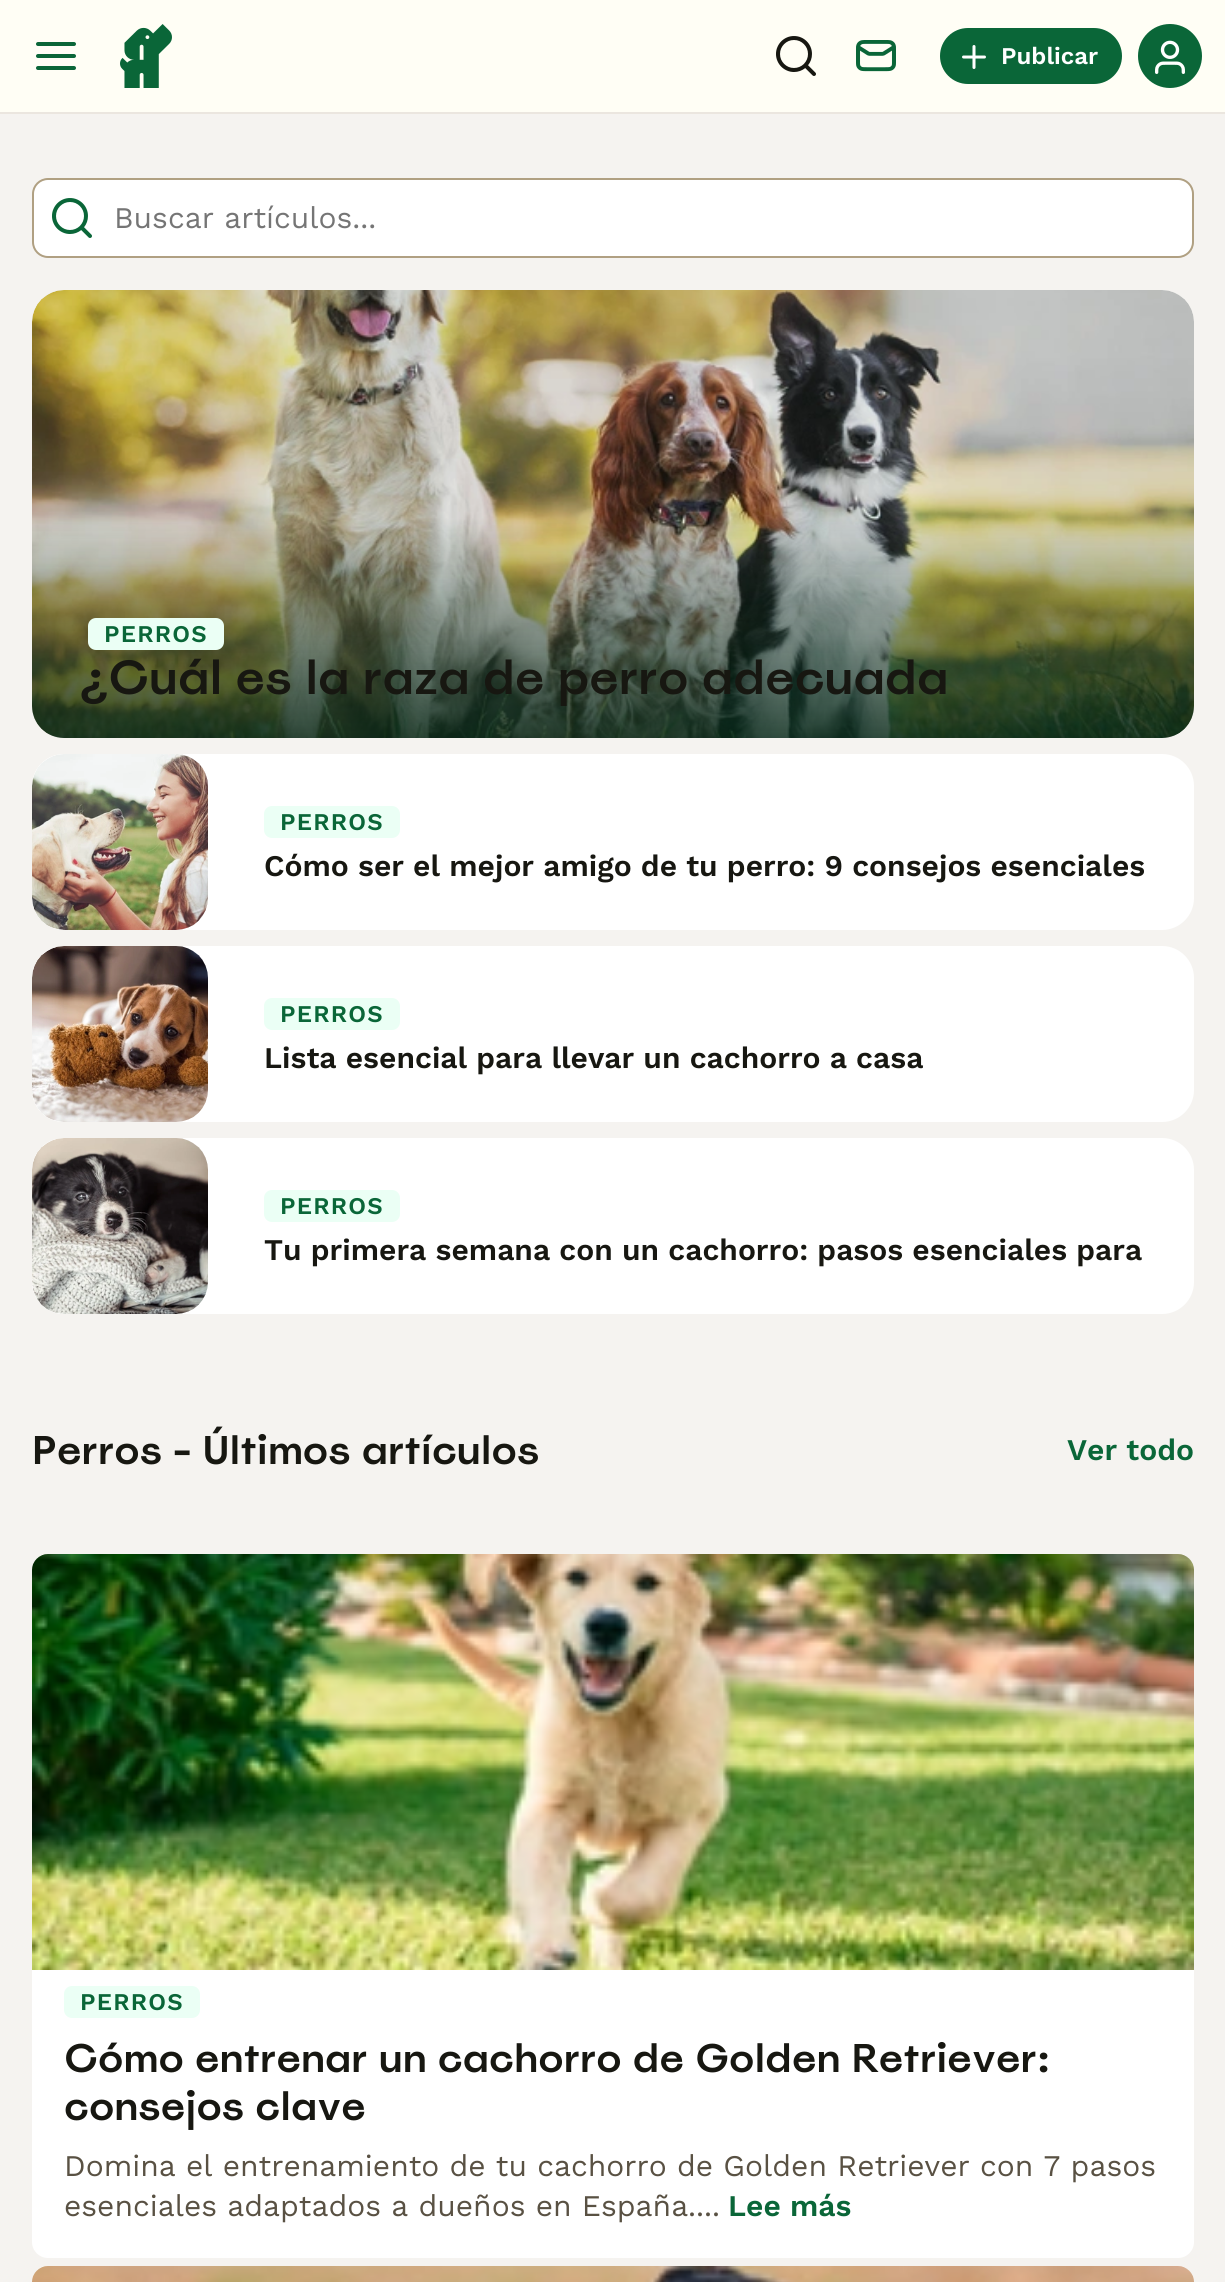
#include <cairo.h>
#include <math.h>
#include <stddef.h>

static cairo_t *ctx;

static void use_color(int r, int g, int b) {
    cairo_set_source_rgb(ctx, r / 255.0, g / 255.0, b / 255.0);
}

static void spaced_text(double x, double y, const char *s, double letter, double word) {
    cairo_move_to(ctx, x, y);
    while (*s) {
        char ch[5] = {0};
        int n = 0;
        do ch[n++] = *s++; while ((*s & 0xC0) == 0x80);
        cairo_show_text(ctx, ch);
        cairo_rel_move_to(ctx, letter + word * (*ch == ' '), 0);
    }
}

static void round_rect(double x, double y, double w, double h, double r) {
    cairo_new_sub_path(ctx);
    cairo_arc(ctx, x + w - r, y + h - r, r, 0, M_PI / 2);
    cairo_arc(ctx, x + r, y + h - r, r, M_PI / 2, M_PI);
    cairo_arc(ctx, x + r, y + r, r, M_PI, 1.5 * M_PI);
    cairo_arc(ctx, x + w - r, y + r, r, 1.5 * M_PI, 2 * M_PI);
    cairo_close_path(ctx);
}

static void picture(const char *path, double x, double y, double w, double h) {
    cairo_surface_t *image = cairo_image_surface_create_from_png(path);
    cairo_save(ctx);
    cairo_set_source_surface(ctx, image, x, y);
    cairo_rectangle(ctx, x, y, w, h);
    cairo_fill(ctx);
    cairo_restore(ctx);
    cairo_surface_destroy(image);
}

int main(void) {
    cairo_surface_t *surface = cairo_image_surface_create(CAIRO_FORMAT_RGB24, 1225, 2282);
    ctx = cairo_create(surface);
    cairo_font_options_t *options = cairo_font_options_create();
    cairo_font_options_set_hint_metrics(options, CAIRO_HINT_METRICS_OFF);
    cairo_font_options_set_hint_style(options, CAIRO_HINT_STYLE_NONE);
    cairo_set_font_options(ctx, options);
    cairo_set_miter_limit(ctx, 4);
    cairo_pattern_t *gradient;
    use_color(245, 243, 240);
    cairo_paint(ctx);
    use_color(255, 254, 245);
    cairo_rectangle(ctx, 0, 0, 1225, 112);
    cairo_fill(ctx);
    use_color(235, 230, 223);
    cairo_rectangle(ctx, 0, 112, 1225, 2);
    cairo_fill(ctx);
    picture("img1.png", 36, 42, 40, 28);
    picture("img2.png", 120, 24, 52, 64);
    picture("img3.png", 776, 36, 40, 40);
    picture("img4.png", 856, 40, 40, 32);
    use_color(10, 102, 56);
    round_rect(940, 28, 182, 56, 28);
    cairo_fill(ctx);
    picture("img5.png", 962, 45, 24, 24);
    cairo_select_font_face(ctx, "Work Sans SemiBold", CAIRO_FONT_SLANT_NORMAL, CAIRO_FONT_WEIGHT_NORMAL);
    cairo_set_font_size(ctx, 24);
    use_color(255, 255, 255);
    cairo_move_to(ctx, 1001, 64);
    cairo_show_text(ctx, "Publicar");
    use_color(10, 102, 56);
    cairo_new_path(ctx);
    cairo_arc(ctx, 1170, 56, 32, 0, 2 * M_PI);
    cairo_fill(ctx);
    picture("img6.png", 1155, 40, 30, 34);
    use_color(255, 255, 255);
    round_rect(33, 179, 1160, 78, 15);
    cairo_fill_preserve(ctx);
    use_color(176, 160, 130);
    cairo_stroke(ctx);
    picture("img7.png", 52, 198, 40, 40);
    cairo_select_font_face(ctx, "Work Sans", CAIRO_FONT_SLANT_NORMAL, CAIRO_FONT_WEIGHT_NORMAL);
    cairo_set_font_size(ctx, 30);
    use_color(117, 117, 117);
    cairo_move_to(ctx, 114, 228);
    cairo_show_text(ctx, "Buscar artículos...");
    picture("img8.png", 32, 290, 1162, 448);
    gradient = cairo_pattern_create_linear(613, 290, 613, 738);
    cairo_pattern_add_color_stop_rgba(gradient, 0.51, 0.016, 0.149, 0.082, 0.06);
    cairo_pattern_add_color_stop_rgba(gradient, 1, 0.016, 0.149, 0.082, 0.8);
    cairo_set_source(ctx, gradient);
    cairo_pattern_destroy(gradient);
    round_rect(32, 290, 1162, 448, 32);
    cairo_fill(ctx);
    use_color(235, 255, 245);
    round_rect(88, 618, 136, 32, 8);
    cairo_fill(ctx);
    cairo_select_font_face(ctx, "Work Sans SemiBold", CAIRO_FONT_SLANT_NORMAL, CAIRO_FONT_WEIGHT_NORMAL);
    cairo_set_font_size(ctx, 24);
    use_color(10, 102, 56);
    spaced_text(104, 642, "PERROS", 1.25, 0);
    cairo_save(ctx);
    cairo_rectangle(ctx, 80, 650, 890, 56);
    cairo_clip(ctx);
    cairo_select_font_face(ctx, "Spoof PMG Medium", CAIRO_FONT_SLANT_NORMAL, CAIRO_FONT_WEIGHT_NORMAL);
    cairo_set_font_size(ctx, 48);
    use_color(23, 23, 17);
    cairo_move_to(ctx, 80, 694);
    cairo_show_text(ctx, "¿Cuál es la raza de perro adecuada");
    cairo_restore(ctx);
    use_color(255, 255, 255);
    round_rect(32, 754, 1162, 176, 32);
    cairo_fill(ctx);
    picture("img9.png", 32, 754, 176, 176);
    use_color(235, 255, 245);
    round_rect(264, 806, 136, 32, 8);
    cairo_fill(ctx);
    use_color(10, 102, 56);
    spaced_text(280, 830, "PERROS", 1.25, 0);
    cairo_set_font_size(ctx, 30);
    use_color(23, 23, 17);
    cairo_move_to(ctx, 264, 876);
    cairo_show_text(ctx, "Cómo ser el mejor amigo de tu perro: 9 consejos esenciales");
    use_color(255, 255, 255);
    round_rect(32, 946, 1162, 176, 32);
    cairo_fill(ctx);
    picture("img10.png", 32, 946, 176, 176);
    use_color(235, 255, 245);
    round_rect(264, 998, 136, 32, 8);
    cairo_fill(ctx);
    cairo_set_font_size(ctx, 24);
    use_color(10, 102, 56);
    spaced_text(280, 1022, "PERROS", 1.25, 0);
    cairo_set_font_size(ctx, 30);
    use_color(23, 23, 17);
    cairo_move_to(ctx, 264, 1068);
    cairo_show_text(ctx, "Lista esencial para llevar un cachorro a casa");
    use_color(255, 255, 255);
    round_rect(32, 1138, 1162, 176, 32);
    cairo_fill(ctx);
    picture("img11.png", 32, 1138, 176, 176);
    use_color(235, 255, 245);
    round_rect(264, 1190, 136, 32, 8);
    cairo_fill(ctx);
    cairo_set_font_size(ctx, 24);
    use_color(10, 102, 56);
    spaced_text(280, 1214, "PERROS", 1.25, 0);
    cairo_set_font_size(ctx, 30);
    use_color(23, 23, 17);
    cairo_move_to(ctx, 264, 1260);
    cairo_show_text(ctx, "Tu primera semana con un cachorro: pasos esenciales para");
    cairo_select_font_face(ctx, "Spoof PMG Medium", CAIRO_FONT_SLANT_NORMAL, CAIRO_FONT_WEIGHT_NORMAL);
    cairo_set_font_size(ctx, 40);
    cairo_move_to(ctx, 32, 1464);
    cairo_show_text(ctx, "Perros - Últimos artículos");
    cairo_select_font_face(ctx, "Work Sans SemiBold", CAIRO_FONT_SLANT_NORMAL, CAIRO_FONT_WEIGHT_NORMAL);
    cairo_set_font_size(ctx, 30);
    use_color(10, 102, 56);
    cairo_move_to(ctx, 1067, 1460);
    cairo_show_text(ctx, "Ver todo");
    use_color(255, 255, 255);
    round_rect(32, 1554, 1162, 704, 16);
    cairo_fill(ctx);
    picture("img12.png", 32, 1554, 1162, 416);
    use_color(235, 255, 245);
    round_rect(64, 1986, 136, 32, 8);
    cairo_fill(ctx);
    cairo_set_font_size(ctx, 24);
    use_color(10, 102, 56);
    spaced_text(80, 2010, "PERROS", 1.25, 0);
    cairo_select_font_face(ctx, "Spoof PMG Medium", CAIRO_FONT_SLANT_NORMAL, CAIRO_FONT_WEIGHT_NORMAL);
    cairo_set_font_size(ctx, 40);
    use_color(23, 23, 17);
    cairo_move_to(ctx, 64, 2072);
    cairo_show_text(ctx, "Cómo entrenar un cachorro de Golden Retriever:");
    cairo_move_to(ctx, 64, 2120);
    cairo_show_text(ctx, "consejos clave");
    cairo_select_font_face(ctx, "Work Sans", CAIRO_FONT_SLANT_NORMAL, CAIRO_FONT_WEIGHT_NORMAL);
    cairo_set_font_size(ctx, 30);
    use_color(89, 81, 67);
    cairo_move_to(ctx, 64, 2176);
    cairo_show_text(ctx, "Domina el entrenamiento de tu cachorro de Golden Retriever con 7 pasos");
    cairo_move_to(ctx, 64, 2216);
    cairo_show_text(ctx, "esenciales adaptados a dueños en España....");
    cairo_select_font_face(ctx, "Work Sans SemiBold", CAIRO_FONT_SLANT_NORMAL, CAIRO_FONT_WEIGHT_NORMAL);
    use_color(10, 102, 56);
    cairo_move_to(ctx, 728, 2216);
    cairo_show_text(ctx, "Lee más");
    use_color(255, 255, 255);
    round_rect(32, 2266, 1162, 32, 16);
    cairo_fill(ctx);
    picture("img13.png", 32, 2266, 1162, 16);
    cairo_surface_write_to_png(surface, "result.png");
    cairo_font_options_destroy(options);
    cairo_destroy(ctx);
    cairo_surface_destroy(surface);
    return 0;
}
